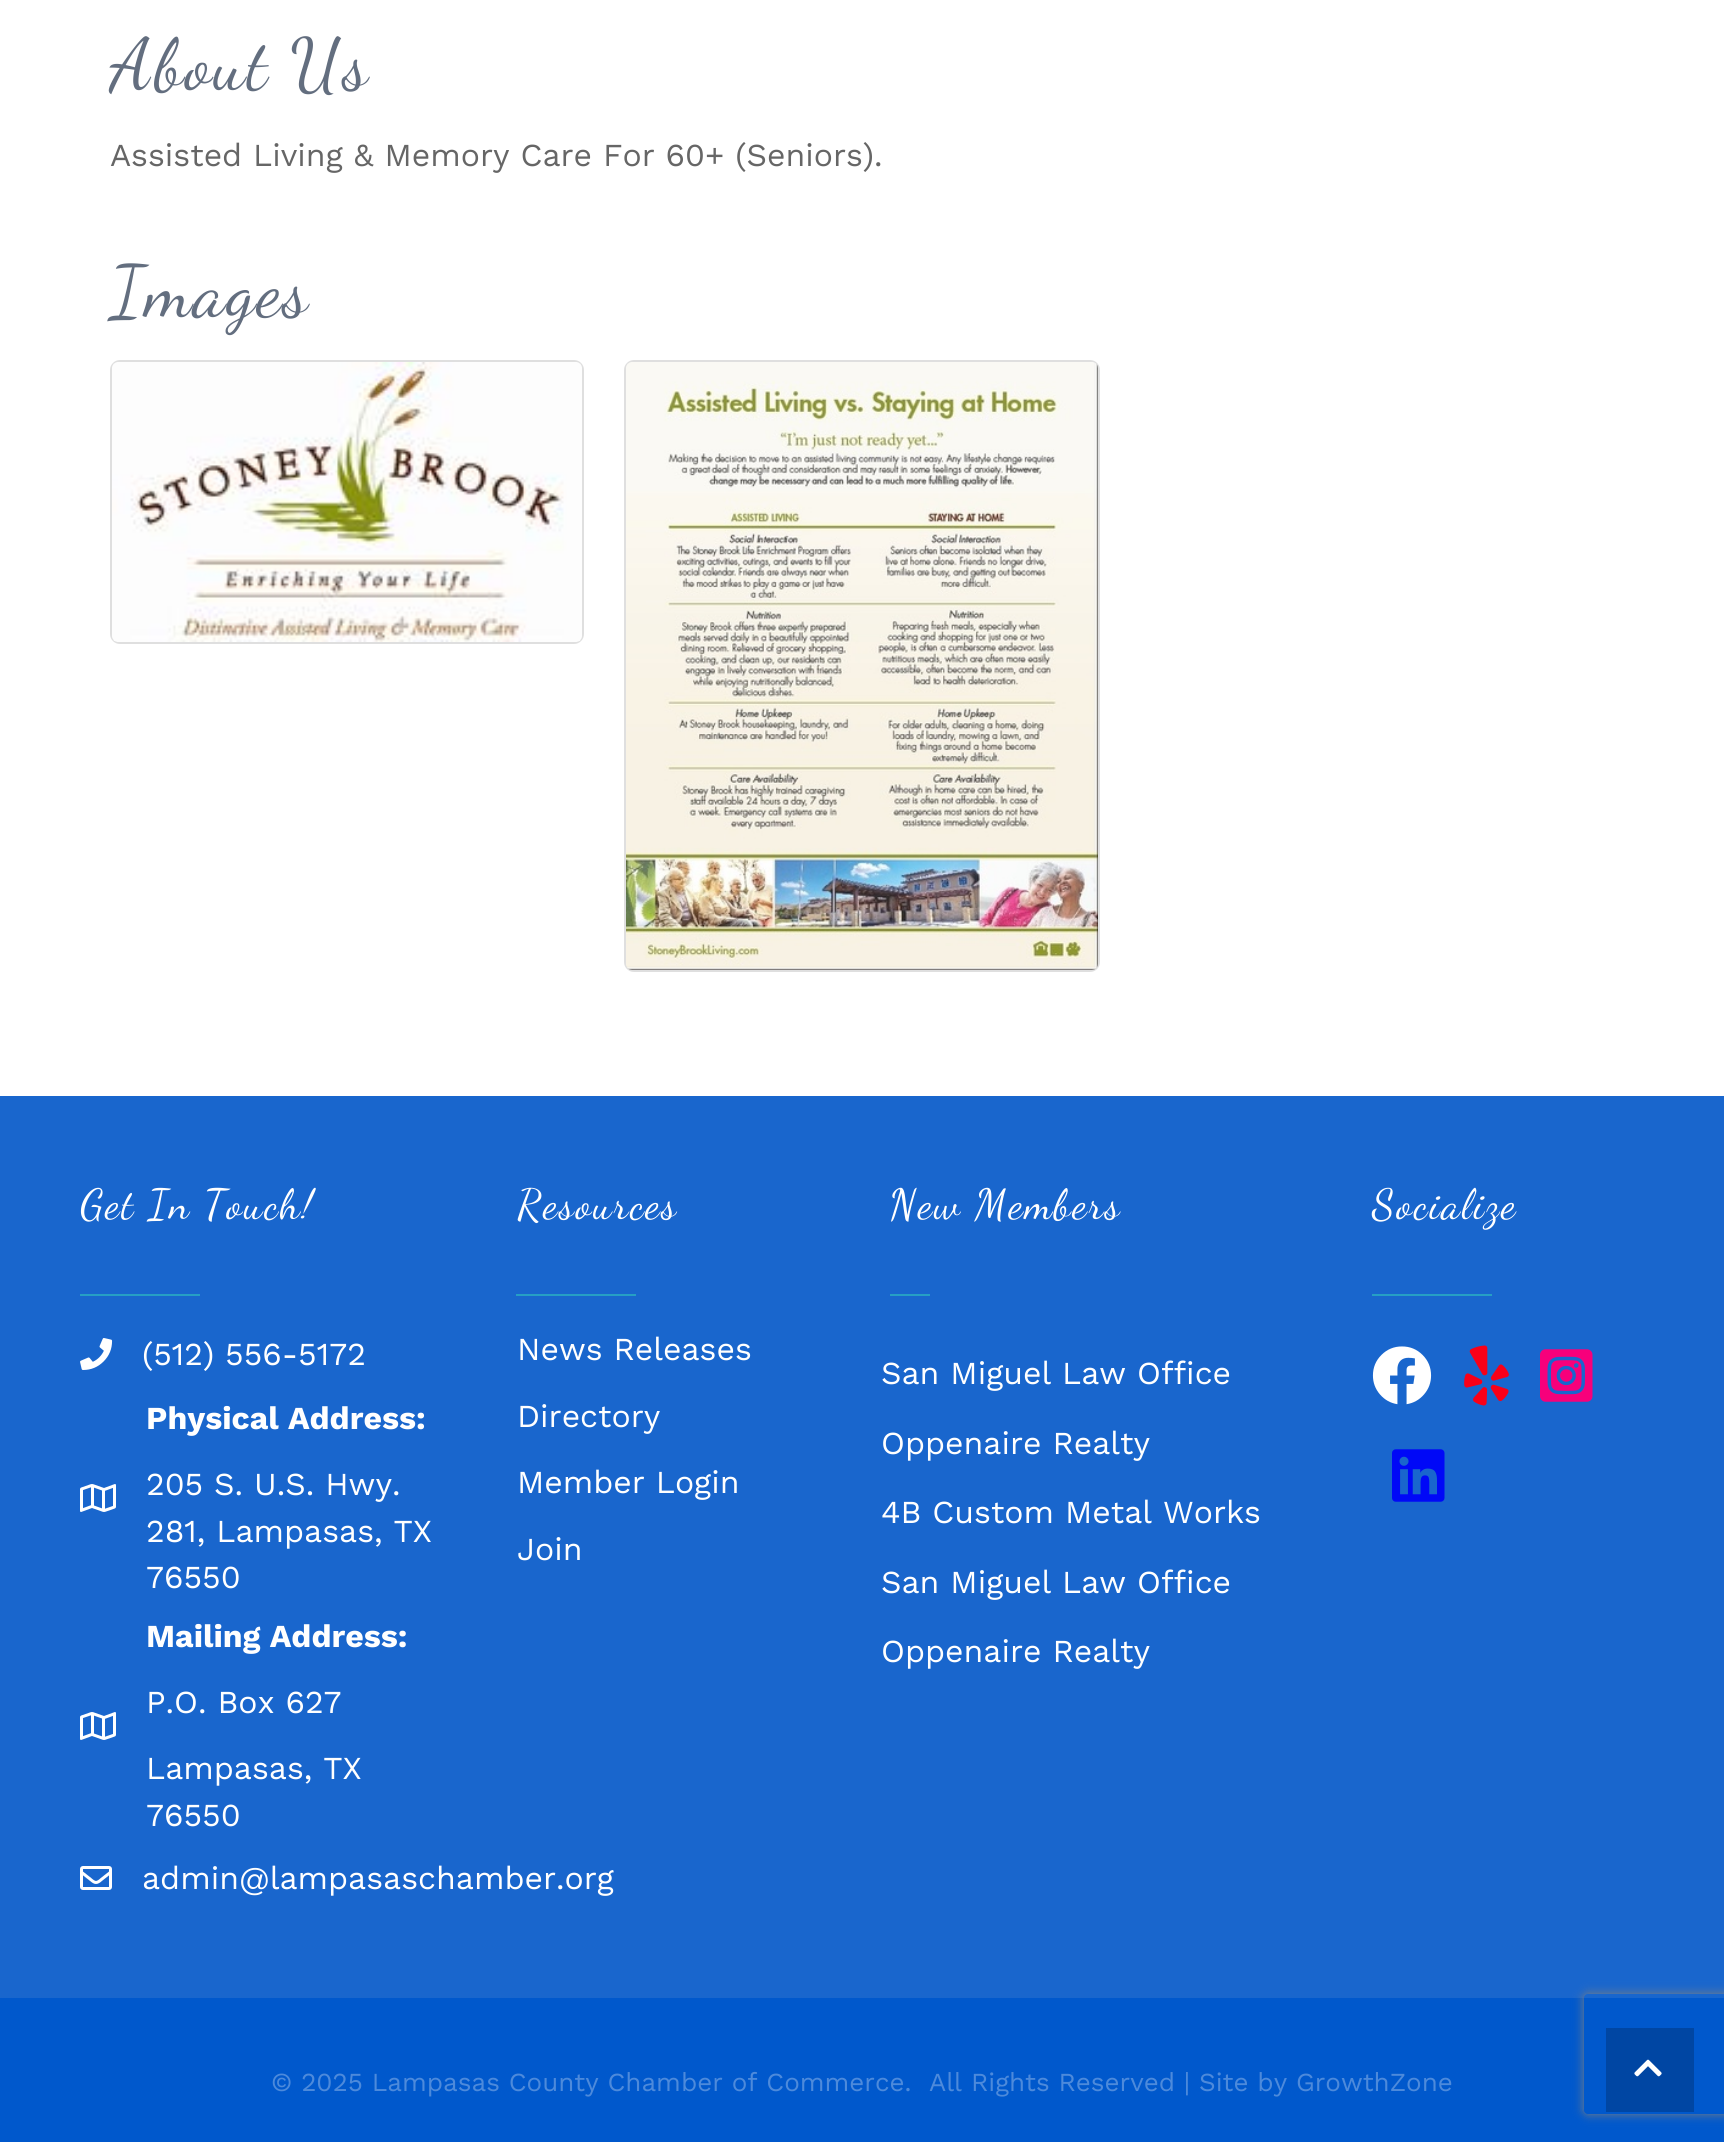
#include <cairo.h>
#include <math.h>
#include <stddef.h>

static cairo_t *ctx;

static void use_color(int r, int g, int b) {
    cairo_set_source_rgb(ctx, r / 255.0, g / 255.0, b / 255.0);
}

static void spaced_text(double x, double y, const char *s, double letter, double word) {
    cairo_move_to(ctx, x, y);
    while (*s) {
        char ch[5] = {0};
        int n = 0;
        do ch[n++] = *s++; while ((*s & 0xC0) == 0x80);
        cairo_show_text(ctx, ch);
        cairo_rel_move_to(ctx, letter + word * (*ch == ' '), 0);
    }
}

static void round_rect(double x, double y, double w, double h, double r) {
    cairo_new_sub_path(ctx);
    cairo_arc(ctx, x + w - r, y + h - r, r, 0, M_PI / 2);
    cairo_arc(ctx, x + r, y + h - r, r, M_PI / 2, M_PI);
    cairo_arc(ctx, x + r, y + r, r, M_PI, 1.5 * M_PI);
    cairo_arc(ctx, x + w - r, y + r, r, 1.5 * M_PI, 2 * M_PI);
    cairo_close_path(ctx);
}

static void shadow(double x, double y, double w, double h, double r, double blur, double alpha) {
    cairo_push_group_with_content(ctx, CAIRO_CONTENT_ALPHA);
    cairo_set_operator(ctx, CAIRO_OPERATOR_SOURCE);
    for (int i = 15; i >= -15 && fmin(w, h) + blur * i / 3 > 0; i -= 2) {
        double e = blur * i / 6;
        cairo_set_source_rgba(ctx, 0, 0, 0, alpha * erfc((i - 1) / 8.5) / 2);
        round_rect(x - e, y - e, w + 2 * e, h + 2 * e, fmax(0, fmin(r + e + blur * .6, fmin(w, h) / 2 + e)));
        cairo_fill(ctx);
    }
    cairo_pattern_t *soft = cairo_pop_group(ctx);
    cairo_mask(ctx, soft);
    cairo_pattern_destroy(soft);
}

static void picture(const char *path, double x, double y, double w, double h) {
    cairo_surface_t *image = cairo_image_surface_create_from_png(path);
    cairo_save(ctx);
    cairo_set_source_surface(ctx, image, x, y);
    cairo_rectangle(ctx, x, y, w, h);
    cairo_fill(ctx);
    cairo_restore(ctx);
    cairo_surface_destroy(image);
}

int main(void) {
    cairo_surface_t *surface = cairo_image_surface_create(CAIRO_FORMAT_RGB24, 1724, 2142);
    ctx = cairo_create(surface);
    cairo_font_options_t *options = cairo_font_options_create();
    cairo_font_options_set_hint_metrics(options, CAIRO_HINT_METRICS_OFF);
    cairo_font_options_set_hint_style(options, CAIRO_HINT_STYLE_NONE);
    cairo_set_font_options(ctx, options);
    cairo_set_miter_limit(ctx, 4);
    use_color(255, 255, 255);
    cairo_paint(ctx);
    cairo_select_font_face(ctx, "Dancing Script", CAIRO_FONT_SLANT_NORMAL, CAIRO_FONT_WEIGHT_NORMAL);
    cairo_set_font_size(ctx, 72);
    use_color(99, 110, 127);
    spaced_text(110, 88, "About Us", 2, 0);
    cairo_select_font_face(ctx, "Work Sans", CAIRO_FONT_SLANT_NORMAL, CAIRO_FONT_WEIGHT_NORMAL);
    cairo_set_font_size(ctx, 32);
    use_color(102, 102, 102);
    cairo_move_to(ctx, 110, 166);
    cairo_show_text(ctx, "Assisted Living & Memory Care For 60+ (Seniors).");
    cairo_select_font_face(ctx, "Dancing Script", CAIRO_FONT_SLANT_NORMAL, CAIRO_FONT_WEIGHT_NORMAL);
    cairo_set_font_size(ctx, 72);
    use_color(99, 110, 127);
    spaced_text(110, 315, "Images", 2, 0);
    round_rect(111, 361, 472, 282, 9);
    use_color(223, 223, 223);
    cairo_stroke(ctx);
    picture("img1.png", 112, 362, 470, 280);
    round_rect(625, 361, 474, 610, 9);
    cairo_stroke(ctx);
    picture("img2.png", 626, 362, 472, 608);
    use_color(25, 102, 205);
    cairo_rectangle(ctx, 0, 1096, 1724, 902);
    cairo_fill(ctx);
    cairo_set_font_size(ctx, 42);
    use_color(255, 255, 255);
    spaced_text(80, 1218, "Get In Touch!", 2, 0);
    use_color(38, 159, 196);
    cairo_rectangle(ctx, 80, 1294, 120, 2);
    cairo_fill(ctx);
    picture("img3.png", 80, 1338, 33, 32);
    cairo_select_font_face(ctx, "Work Sans", CAIRO_FONT_SLANT_NORMAL, CAIRO_FONT_WEIGHT_NORMAL);
    cairo_set_font_size(ctx, 32);
    use_color(255, 255, 255);
    cairo_move_to(ctx, 142, 1365);
    cairo_show_text(ctx, "(512) 556-5172");
    picture("img4.png", 80, 1484, 36, 28);
    cairo_select_font_face(ctx, "Work Sans", CAIRO_FONT_SLANT_NORMAL, CAIRO_FONT_WEIGHT_BOLD);
    cairo_move_to(ctx, 146, 1429);
    cairo_show_text(ctx, "Physical Address:");
    cairo_select_font_face(ctx, "Work Sans", CAIRO_FONT_SLANT_NORMAL, CAIRO_FONT_WEIGHT_NORMAL);
    cairo_move_to(ctx, 146, 1495);
    cairo_show_text(ctx, "205 S. U.S. Hwy.");
    cairo_move_to(ctx, 146, 1542);
    cairo_show_text(ctx, "281, Lampasas, TX");
    cairo_move_to(ctx, 146, 1588);
    cairo_show_text(ctx, "76550");
    picture("img4.png", 80, 1712, 36, 28);
    cairo_select_font_face(ctx, "Work Sans", CAIRO_FONT_SLANT_NORMAL, CAIRO_FONT_WEIGHT_BOLD);
    cairo_move_to(ctx, 146, 1647);
    cairo_show_text(ctx, "Mailing Address:");
    cairo_select_font_face(ctx, "Work Sans", CAIRO_FONT_SLANT_NORMAL, CAIRO_FONT_WEIGHT_NORMAL);
    cairo_move_to(ctx, 146, 1713);
    cairo_show_text(ctx, "P.O. Box 627");
    cairo_move_to(ctx, 146, 1779);
    cairo_show_text(ctx, "Lampasas, TX");
    cairo_move_to(ctx, 146, 1826);
    cairo_show_text(ctx, "76550");
    picture("img5.png", 80, 1866, 32, 24);
    cairo_move_to(ctx, 142, 1889);
    cairo_show_text(ctx, "admin@lampasaschamber.org");
    cairo_select_font_face(ctx, "Dancing Script", CAIRO_FONT_SLANT_NORMAL, CAIRO_FONT_WEIGHT_NORMAL);
    cairo_set_font_size(ctx, 42);
    spaced_text(517, 1218, "Resources", 2, 0);
    use_color(38, 159, 196);
    cairo_rectangle(ctx, 516, 1294, 120, 2);
    cairo_fill(ctx);
    cairo_select_font_face(ctx, "Work Sans", CAIRO_FONT_SLANT_NORMAL, CAIRO_FONT_WEIGHT_NORMAL);
    cairo_set_font_size(ctx, 32);
    use_color(255, 255, 255);
    cairo_move_to(ctx, 517, 1360);
    cairo_show_text(ctx, "News Releases");
    cairo_move_to(ctx, 517, 1427);
    cairo_show_text(ctx, "Directory");
    cairo_move_to(ctx, 517, 1493);
    cairo_show_text(ctx, "Member Login");
    cairo_move_to(ctx, 517, 1560);
    cairo_show_text(ctx, "Join");
    cairo_select_font_face(ctx, "Dancing Script", CAIRO_FONT_SLANT_NORMAL, CAIRO_FONT_WEIGHT_NORMAL);
    cairo_set_font_size(ctx, 42);
    spaced_text(889, 1218, "New Members", 2, 0);
    use_color(38, 159, 196);
    cairo_rectangle(ctx, 890, 1294, 40, 2);
    cairo_fill(ctx);
    cairo_select_font_face(ctx, "Work Sans", CAIRO_FONT_SLANT_NORMAL, CAIRO_FONT_WEIGHT_NORMAL);
    cairo_set_font_size(ctx, 32);
    use_color(255, 255, 255);
    cairo_move_to(ctx, 881, 1384);
    cairo_show_text(ctx, "San Miguel Law Office");
    cairo_move_to(ctx, 881, 1454);
    cairo_show_text(ctx, "Oppenaire Realty");
    cairo_move_to(ctx, 881, 1523);
    cairo_show_text(ctx, "4B Custom Metal Works");
    cairo_move_to(ctx, 881, 1593);
    cairo_show_text(ctx, "San Miguel Law Office");
    cairo_move_to(ctx, 881, 1662);
    cairo_show_text(ctx, "Oppenaire Realty");
    cairo_select_font_face(ctx, "Dancing Script", CAIRO_FONT_SLANT_NORMAL, CAIRO_FONT_WEIGHT_NORMAL);
    cairo_set_font_size(ctx, 42);
    spaced_text(1372, 1218, "Socialize", 2, 0);
    use_color(38, 159, 196);
    cairo_rectangle(ctx, 1372, 1294, 120, 2);
    cairo_fill(ctx);
    picture("img6.png", 1372, 1346, 60, 59);
    picture("img7.png", 1464, 1345, 45, 61);
    picture("img8.png", 1540, 1349, 53, 53);
    picture("img9.png", 1392, 1449, 53, 53);
    use_color(0, 88, 204);
    cairo_rectangle(ctx, 0, 1998, 1724, 144);
    cairo_fill(ctx);
    cairo_select_font_face(ctx, "Work Sans", CAIRO_FONT_SLANT_NORMAL, CAIRO_FONT_WEIGHT_NORMAL);
    cairo_set_font_size(ctx, 26);
    use_color(77, 138, 219);
    cairo_move_to(ctx, 271, 2091);
    cairo_show_text(ctx, "© 2025 Lampasas County Chamber of Commerce.");
    cairo_move_to(ctx, 929, 2091);
    cairo_show_text(ctx, "All Rights Reserved | Site by GrowthZone");
    cairo_save(ctx);
    cairo_set_fill_rule(ctx, CAIRO_FILL_RULE_EVEN_ODD);
    cairo_new_path(ctx);
    cairo_move_to(ctx, 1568, 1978);
    cairo_line_to(ctx, 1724, 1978);
    cairo_line_to(ctx, 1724, 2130);
    cairo_line_to(ctx, 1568, 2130);
    cairo_close_path(ctx);
    cairo_move_to(ctx, 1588, 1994);
    cairo_line_to(ctx, 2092, 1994);
    cairo_curve_to(ctx, 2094, 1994, 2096, 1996, 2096, 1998);
    cairo_line_to(ctx, 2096, 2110);
    cairo_curve_to(ctx, 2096, 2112, 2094, 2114, 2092, 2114);
    cairo_line_to(ctx, 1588, 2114);
    cairo_curve_to(ctx, 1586, 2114, 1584, 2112, 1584, 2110);
    cairo_line_to(ctx, 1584, 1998);
    cairo_curve_to(ctx, 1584, 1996, 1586, 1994, 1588, 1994);
    cairo_close_path(ctx);
    cairo_clip(ctx);
    use_color(128, 128, 128);
    shadow(1584, 1994, 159, 120, 4, 5, 1);
    cairo_restore(ctx);
    use_color(0, 70, 163);
    cairo_rectangle(ctx, 1606, 2028, 88, 84);
    cairo_fill(ctx);
    picture("img10.png", 1634, 2059, 28, 18);
    cairo_surface_write_to_png(surface, "result.png");
    cairo_font_options_destroy(options);
    cairo_destroy(ctx);
    cairo_surface_destroy(surface);
    return 0;
}
